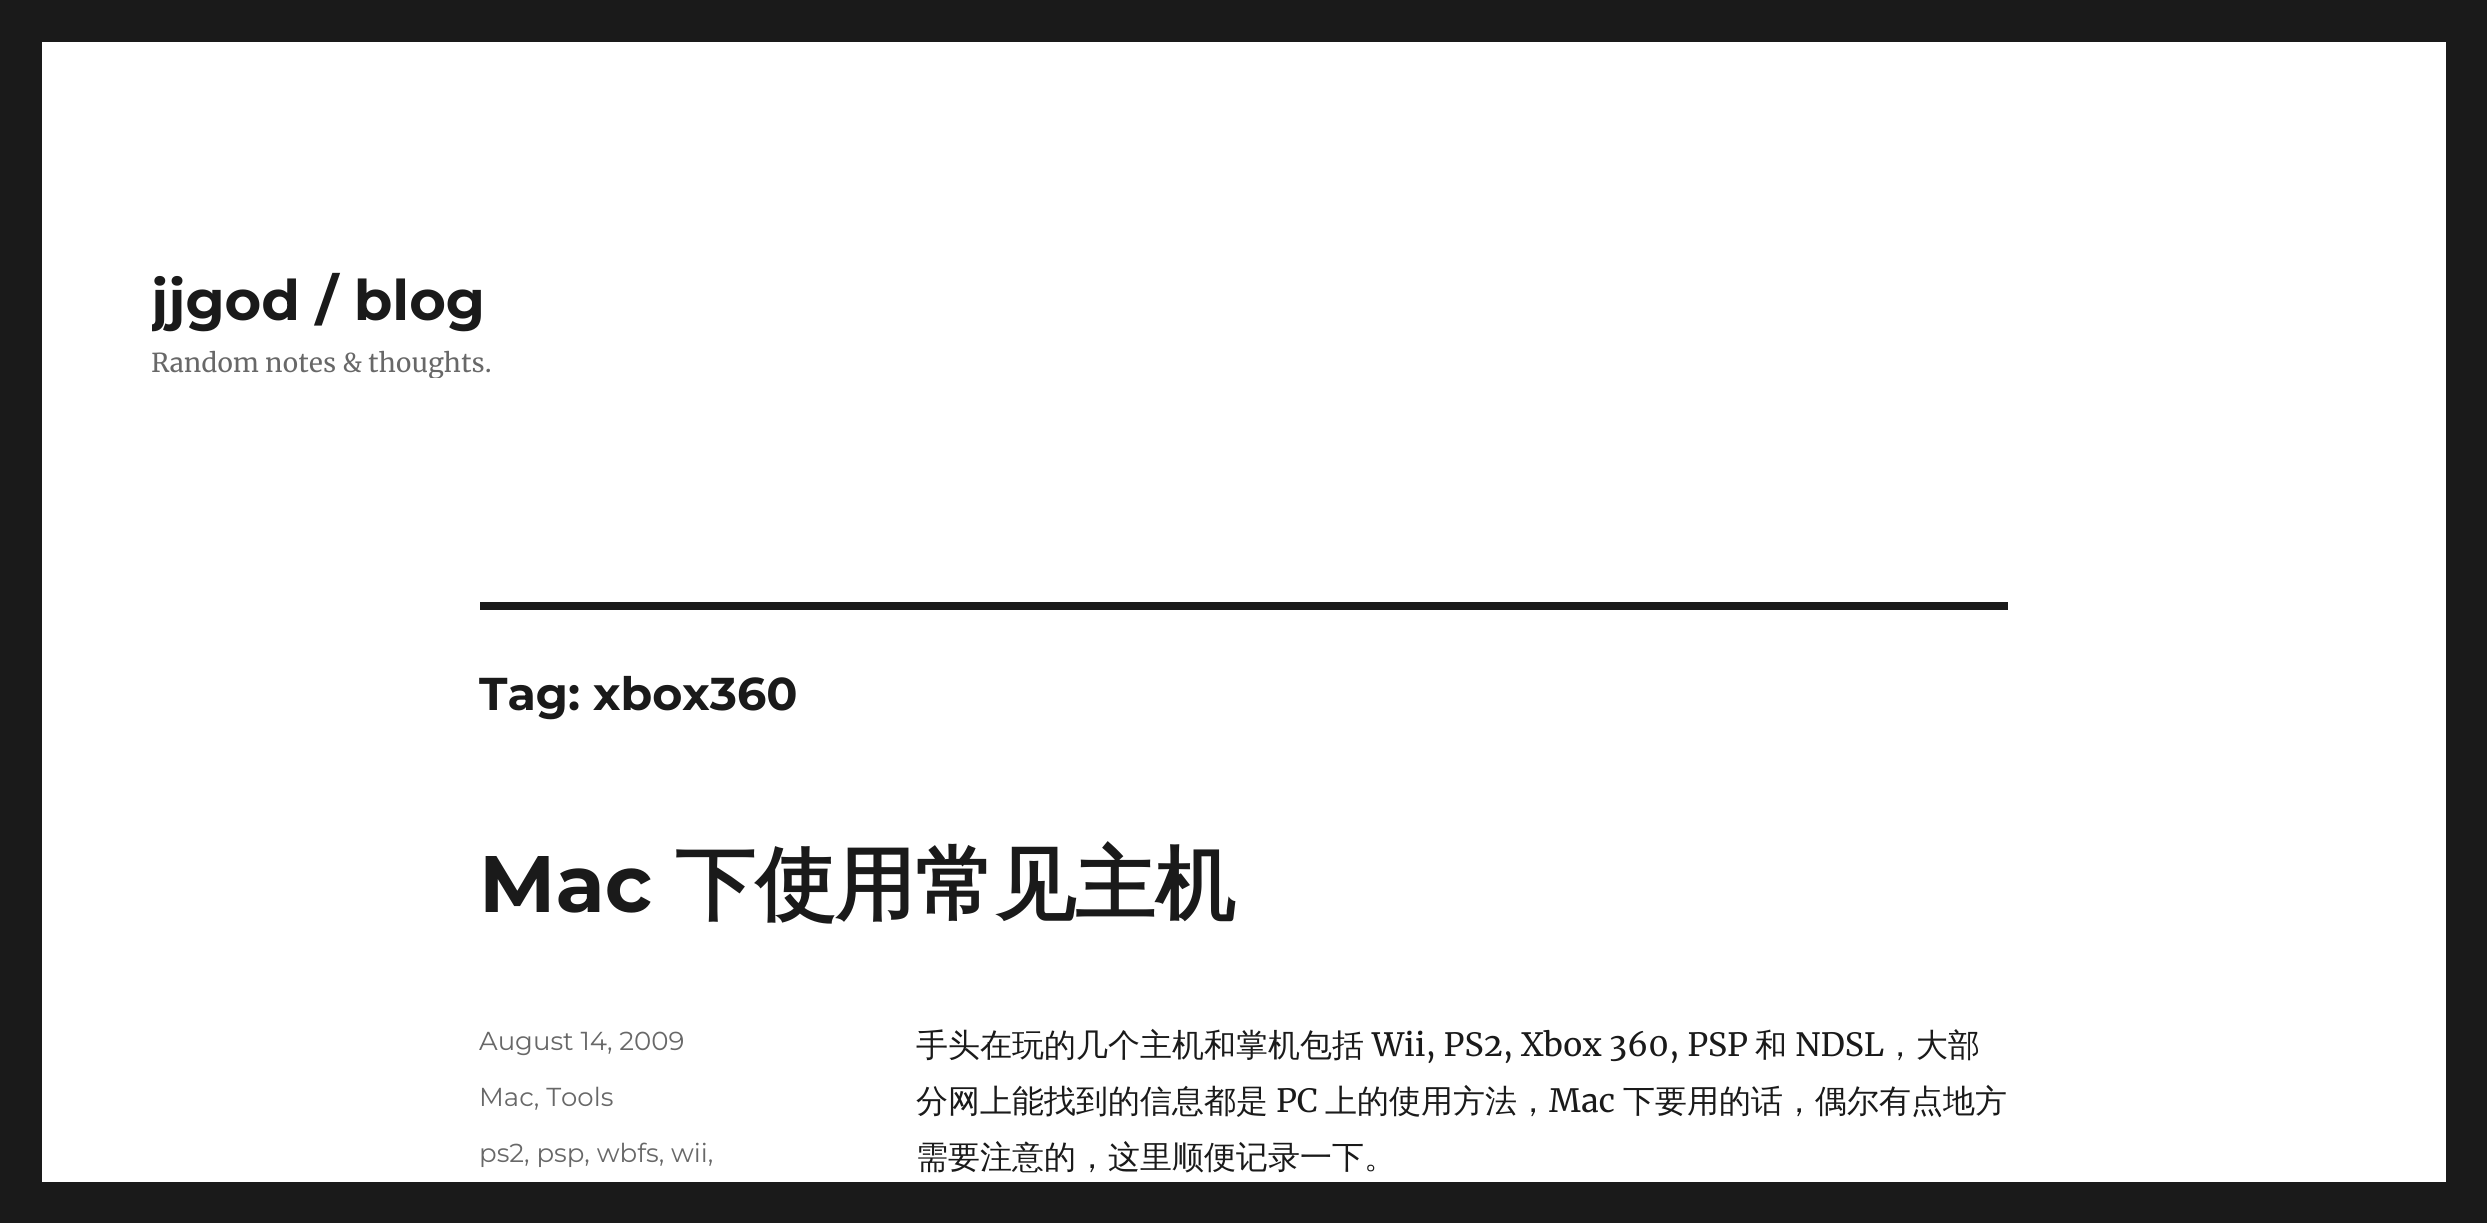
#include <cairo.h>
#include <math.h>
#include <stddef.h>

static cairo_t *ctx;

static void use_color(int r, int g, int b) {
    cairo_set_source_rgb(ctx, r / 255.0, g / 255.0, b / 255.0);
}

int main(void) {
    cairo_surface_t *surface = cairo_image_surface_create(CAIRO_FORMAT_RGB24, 2487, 1223);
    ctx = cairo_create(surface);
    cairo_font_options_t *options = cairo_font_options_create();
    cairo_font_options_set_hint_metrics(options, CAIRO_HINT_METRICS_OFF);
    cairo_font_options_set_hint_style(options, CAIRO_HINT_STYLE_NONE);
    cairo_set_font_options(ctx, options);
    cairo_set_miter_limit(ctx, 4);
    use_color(26, 26, 26);
    cairo_paint(ctx);
    use_color(255, 255, 255);
    cairo_rectangle(ctx, 42, 42, 2404, 1140);
    cairo_fill(ctx);
    cairo_save(ctx);
    cairo_rectangle(ctx, 152, 266, 340, 112);
    cairo_clip(ctx);
    cairo_select_font_face(ctx, "Montserrat Thin", CAIRO_FONT_SLANT_NORMAL, CAIRO_FONT_WEIGHT_NORMAL);
    cairo_set_font_size(ctx, 56);
    use_color(26, 26, 26);
    cairo_move_to(ctx, 151, 320);
    cairo_show_text(ctx, "jjgod / blog");
    cairo_select_font_face(ctx, "Merriweather", CAIRO_FONT_SLANT_NORMAL, CAIRO_FONT_WEIGHT_NORMAL);
    cairo_set_font_size(ctx, 26);
    use_color(104, 104, 104);
    cairo_move_to(ctx, 151, 372);
    cairo_show_text(ctx, "Random notes & thoughts.");
    cairo_restore(ctx);
    use_color(26, 26, 26);
    cairo_rectangle(ctx, 480, 602, 1528, 8);
    cairo_fill(ctx);
    cairo_select_font_face(ctx, "Montserrat Thin", CAIRO_FONT_SLANT_NORMAL, CAIRO_FONT_WEIGHT_NORMAL);
    cairo_set_font_size(ctx, 46);
    cairo_move_to(ctx, 479, 710);
    cairo_show_text(ctx, "Tag: xbox360");
    cairo_set_font_size(ctx, 80);
    cairo_move_to(ctx, 479, 912);
    cairo_show_text(ctx, "Mac");
    cairo_select_font_face(ctx, "WenQuanYi Zen Hei", CAIRO_FONT_SLANT_NORMAL, CAIRO_FONT_WEIGHT_BOLD);
    cairo_move_to(ctx, 675, 912);
    cairo_show_text(ctx, "下使用常见主机");
    cairo_select_font_face(ctx, "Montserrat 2 Thin", CAIRO_FONT_SLANT_NORMAL, CAIRO_FONT_WEIGHT_NORMAL);
    cairo_set_font_size(ctx, 26);
    use_color(104, 104, 104);
    cairo_move_to(ctx, 479, 1050);
    cairo_show_text(ctx, "August 14, 2009");
    cairo_move_to(ctx, 479, 1106);
    cairo_show_text(ctx, "Mac, Tools");
    cairo_move_to(ctx, 479, 1162);
    cairo_show_text(ctx, "ps2, psp, wbfs, wii,");
    cairo_select_font_face(ctx, "WenQuanYi Zen Hei Medium", CAIRO_FONT_SLANT_NORMAL, CAIRO_FONT_WEIGHT_NORMAL);
    cairo_set_font_size(ctx, 32);
    use_color(26, 26, 26);
    cairo_move_to(ctx, 916, 1056);
    cairo_show_text(ctx, "手头在玩的几个主机和掌机包括");
    cairo_select_font_face(ctx, "Merriweather", CAIRO_FONT_SLANT_NORMAL, CAIRO_FONT_WEIGHT_NORMAL);
    cairo_move_to(ctx, 1372, 1056);
    cairo_show_text(ctx, "Wii, PS2, Xbox 360, PSP");
    cairo_select_font_face(ctx, "WenQuanYi Zen Hei Medium", CAIRO_FONT_SLANT_NORMAL, CAIRO_FONT_WEIGHT_NORMAL);
    cairo_move_to(ctx, 1755, 1056);
    cairo_show_text(ctx, "和");
    cairo_select_font_face(ctx, "Merriweather", CAIRO_FONT_SLANT_NORMAL, CAIRO_FONT_WEIGHT_NORMAL);
    cairo_move_to(ctx, 1795, 1056);
    cairo_show_text(ctx, "NDSL");
    cairo_select_font_face(ctx, "WenQuanYi Zen Hei Medium", CAIRO_FONT_SLANT_NORMAL, CAIRO_FONT_WEIGHT_NORMAL);
    cairo_move_to(ctx, 1884, 1056);
    cairo_show_text(ctx, "，大部");
    cairo_move_to(ctx, 916, 1112);
    cairo_show_text(ctx, "分网上能找到的信息都是");
    cairo_select_font_face(ctx, "Merriweather", CAIRO_FONT_SLANT_NORMAL, CAIRO_FONT_WEIGHT_NORMAL);
    cairo_move_to(ctx, 1276, 1112);
    cairo_show_text(ctx, "PC");
    cairo_select_font_face(ctx, "WenQuanYi Zen Hei Medium", CAIRO_FONT_SLANT_NORMAL, CAIRO_FONT_WEIGHT_NORMAL);
    cairo_move_to(ctx, 1325, 1112);
    cairo_show_text(ctx, "上的使用方法，");
    cairo_select_font_face(ctx, "Merriweather", CAIRO_FONT_SLANT_NORMAL, CAIRO_FONT_WEIGHT_NORMAL);
    cairo_move_to(ctx, 1549, 1112);
    cairo_show_text(ctx, "Mac");
    cairo_select_font_face(ctx, "WenQuanYi Zen Hei Medium", CAIRO_FONT_SLANT_NORMAL, CAIRO_FONT_WEIGHT_NORMAL);
    cairo_move_to(ctx, 1623, 1112);
    cairo_show_text(ctx, "下要用的话，偶尔有点地方");
    cairo_move_to(ctx, 916, 1168);
    cairo_show_text(ctx, "需要注意的，这里顺便记录一下。");
    cairo_surface_write_to_png(surface, "result.png");
    cairo_font_options_destroy(options);
    cairo_destroy(ctx);
    cairo_surface_destroy(surface);
    return 0;
}
